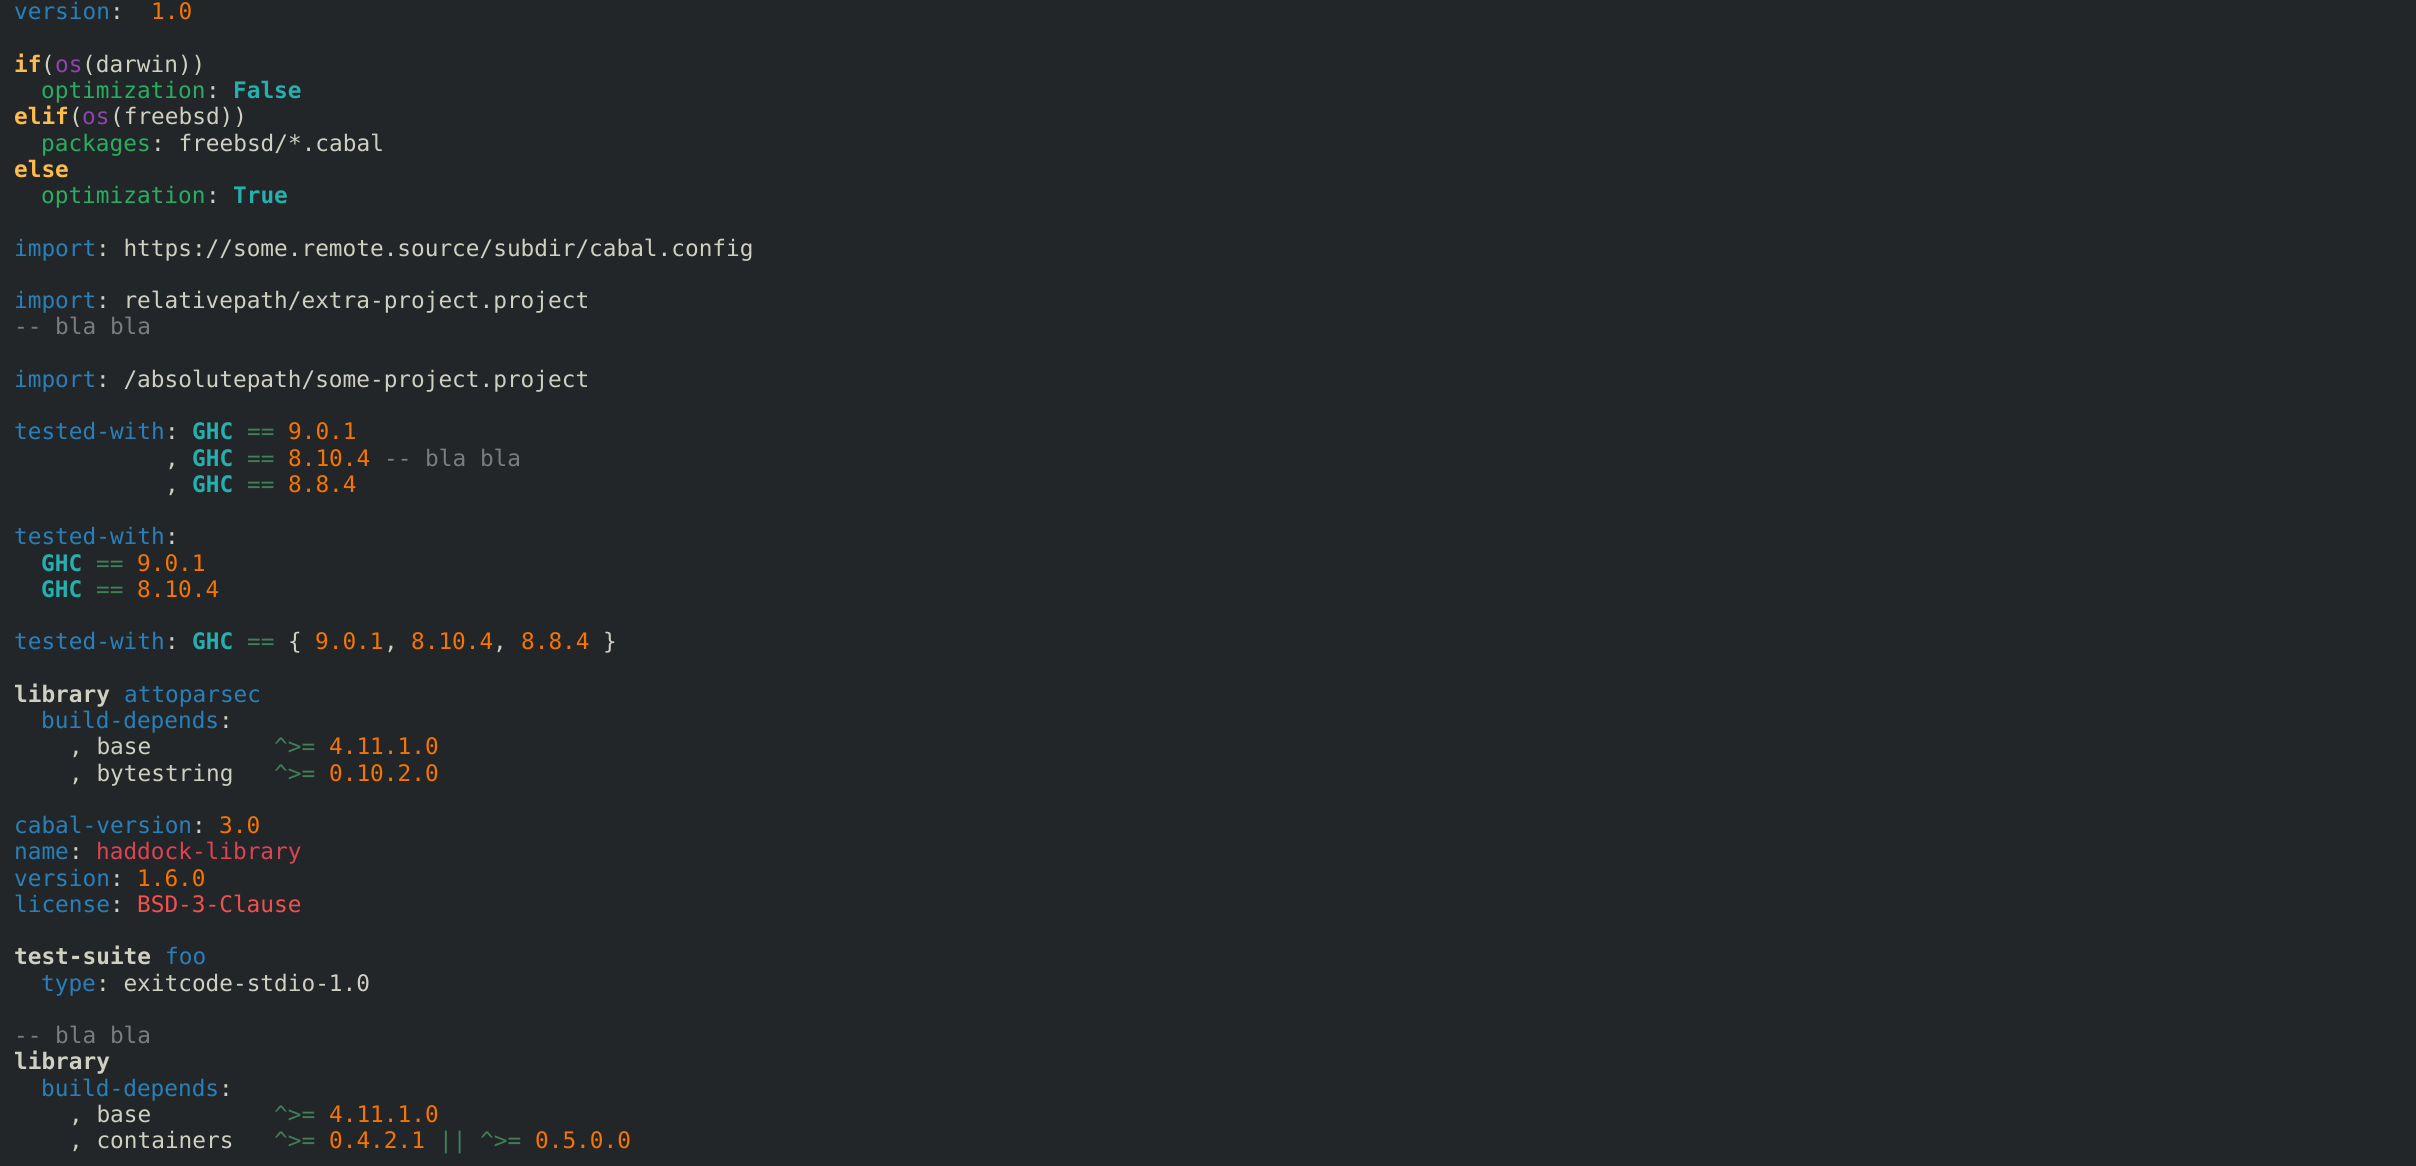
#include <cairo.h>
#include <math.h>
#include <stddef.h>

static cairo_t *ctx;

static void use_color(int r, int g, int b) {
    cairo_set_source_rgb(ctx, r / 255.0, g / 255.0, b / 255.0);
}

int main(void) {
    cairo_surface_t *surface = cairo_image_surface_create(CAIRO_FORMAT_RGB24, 2416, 1166);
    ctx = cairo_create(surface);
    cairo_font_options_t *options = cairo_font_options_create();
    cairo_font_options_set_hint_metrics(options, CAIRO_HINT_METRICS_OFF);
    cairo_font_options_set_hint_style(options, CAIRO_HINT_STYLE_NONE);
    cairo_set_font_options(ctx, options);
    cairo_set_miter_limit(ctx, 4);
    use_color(35, 38, 41);
    cairo_paint(ctx);
    cairo_select_font_face(ctx, "DejaVu Sans Mono", CAIRO_FONT_SLANT_NORMAL, CAIRO_FONT_WEIGHT_NORMAL);
    cairo_set_font_size(ctx, 22.75);
    use_color(41, 128, 185);
    cairo_move_to(ctx, 14, 19);
    cairo_show_text(ctx, "version");
    use_color(207, 207, 194);
    cairo_move_to(ctx, 110, 19);
    cairo_show_text(ctx, ":");
    use_color(246, 116, 0);
    cairo_move_to(ctx, 151, 19);
    cairo_show_text(ctx, "1.0");
    cairo_select_font_face(ctx, "DejaVu Sans Mono", CAIRO_FONT_SLANT_NORMAL, CAIRO_FONT_WEIGHT_BOLD);
    use_color(253, 188, 75);
    cairo_move_to(ctx, 14, 72);
    cairo_show_text(ctx, "if");
    cairo_select_font_face(ctx, "DejaVu Sans Mono", CAIRO_FONT_SLANT_NORMAL, CAIRO_FONT_WEIGHT_NORMAL);
    use_color(207, 207, 194);
    cairo_move_to(ctx, 41, 72);
    cairo_show_text(ctx, "(");
    use_color(142, 68, 173);
    cairo_move_to(ctx, 55, 72);
    cairo_show_text(ctx, "os");
    use_color(207, 207, 194);
    cairo_move_to(ctx, 82, 72);
    cairo_show_text(ctx, "(darwin))");
    use_color(39, 174, 96);
    cairo_move_to(ctx, 41, 98);
    cairo_show_text(ctx, "optimization");
    use_color(207, 207, 194);
    cairo_move_to(ctx, 206, 98);
    cairo_show_text(ctx, ":");
    cairo_select_font_face(ctx, "DejaVu Sans Mono", CAIRO_FONT_SLANT_NORMAL, CAIRO_FONT_WEIGHT_BOLD);
    use_color(39, 174, 174);
    cairo_move_to(ctx, 233, 98);
    cairo_show_text(ctx, "False");
    use_color(253, 188, 75);
    cairo_move_to(ctx, 14, 124);
    cairo_show_text(ctx, "elif");
    cairo_select_font_face(ctx, "DejaVu Sans Mono", CAIRO_FONT_SLANT_NORMAL, CAIRO_FONT_WEIGHT_NORMAL);
    use_color(207, 207, 194);
    cairo_move_to(ctx, 69, 124);
    cairo_show_text(ctx, "(");
    use_color(142, 68, 173);
    cairo_move_to(ctx, 82, 124);
    cairo_show_text(ctx, "os");
    use_color(207, 207, 194);
    cairo_move_to(ctx, 110, 124);
    cairo_show_text(ctx, "(freebsd))");
    use_color(39, 174, 96);
    cairo_move_to(ctx, 41, 151);
    cairo_show_text(ctx, "packages");
    use_color(207, 207, 194);
    cairo_move_to(ctx, 151, 151);
    cairo_show_text(ctx, ": freebsd/*.cabal");
    cairo_select_font_face(ctx, "DejaVu Sans Mono", CAIRO_FONT_SLANT_NORMAL, CAIRO_FONT_WEIGHT_BOLD);
    use_color(253, 188, 75);
    cairo_move_to(ctx, 14, 177);
    cairo_show_text(ctx, "else");
    cairo_select_font_face(ctx, "DejaVu Sans Mono", CAIRO_FONT_SLANT_NORMAL, CAIRO_FONT_WEIGHT_NORMAL);
    use_color(39, 174, 96);
    cairo_move_to(ctx, 41, 203);
    cairo_show_text(ctx, "optimization");
    use_color(207, 207, 194);
    cairo_move_to(ctx, 206, 203);
    cairo_show_text(ctx, ":");
    cairo_select_font_face(ctx, "DejaVu Sans Mono", CAIRO_FONT_SLANT_NORMAL, CAIRO_FONT_WEIGHT_BOLD);
    use_color(39, 174, 174);
    cairo_move_to(ctx, 233, 203);
    cairo_show_text(ctx, "True");
    cairo_select_font_face(ctx, "DejaVu Sans Mono", CAIRO_FONT_SLANT_NORMAL, CAIRO_FONT_WEIGHT_NORMAL);
    use_color(41, 128, 185);
    cairo_move_to(ctx, 14, 256);
    cairo_show_text(ctx, "import");
    use_color(207, 207, 194);
    cairo_move_to(ctx, 96, 256);
    cairo_show_text(ctx, ": https://some.remote.source/subdir/cabal.config");
    use_color(41, 128, 185);
    cairo_move_to(ctx, 14, 308);
    cairo_show_text(ctx, "import");
    use_color(207, 207, 194);
    cairo_move_to(ctx, 96, 308);
    cairo_show_text(ctx, ": relativepath/extra-project.project");
    use_color(122, 124, 125);
    cairo_move_to(ctx, 14, 334);
    cairo_show_text(ctx, "-- bla bla");
    use_color(41, 128, 185);
    cairo_move_to(ctx, 14, 387);
    cairo_show_text(ctx, "import");
    use_color(207, 207, 194);
    cairo_move_to(ctx, 96, 387);
    cairo_show_text(ctx, ": /absolutepath/some-project.project");
    use_color(41, 128, 185);
    cairo_move_to(ctx, 14, 439);
    cairo_show_text(ctx, "tested-with");
    use_color(207, 207, 194);
    cairo_move_to(ctx, 165, 439);
    cairo_show_text(ctx, ":");
    cairo_select_font_face(ctx, "DejaVu Sans Mono", CAIRO_FONT_SLANT_NORMAL, CAIRO_FONT_WEIGHT_BOLD);
    use_color(39, 174, 174);
    cairo_move_to(ctx, 192, 439);
    cairo_show_text(ctx, "GHC");
    cairo_select_font_face(ctx, "DejaVu Sans Mono", CAIRO_FONT_SLANT_NORMAL, CAIRO_FONT_WEIGHT_NORMAL);
    use_color(63, 128, 88);
    cairo_move_to(ctx, 247, 439);
    cairo_show_text(ctx, "==");
    use_color(246, 116, 0);
    cairo_move_to(ctx, 288, 439);
    cairo_show_text(ctx, "9.0.1");
    cairo_select_font_face(ctx, "DejaVu Sans Mono", CAIRO_FONT_SLANT_NORMAL, CAIRO_FONT_WEIGHT_BOLD);
    use_color(39, 174, 174);
    cairo_move_to(ctx, 192, 466);
    cairo_show_text(ctx, "GHC");
    cairo_select_font_face(ctx, "DejaVu Sans Mono", CAIRO_FONT_SLANT_NORMAL, CAIRO_FONT_WEIGHT_NORMAL);
    use_color(63, 128, 88);
    cairo_move_to(ctx, 247, 466);
    cairo_show_text(ctx, "==");
    use_color(246, 116, 0);
    cairo_move_to(ctx, 288, 466);
    cairo_show_text(ctx, "8.10.4");
    use_color(122, 124, 125);
    cairo_move_to(ctx, 384, 466);
    cairo_show_text(ctx, "-- bla bla");
    use_color(207, 207, 194);
    cairo_move_to(ctx, 165, 466);
    cairo_show_text(ctx, ",");
    cairo_select_font_face(ctx, "DejaVu Sans Mono", CAIRO_FONT_SLANT_NORMAL, CAIRO_FONT_WEIGHT_BOLD);
    use_color(39, 174, 174);
    cairo_move_to(ctx, 192, 492);
    cairo_show_text(ctx, "GHC");
    cairo_select_font_face(ctx, "DejaVu Sans Mono", CAIRO_FONT_SLANT_NORMAL, CAIRO_FONT_WEIGHT_NORMAL);
    use_color(63, 128, 88);
    cairo_move_to(ctx, 247, 492);
    cairo_show_text(ctx, "==");
    use_color(246, 116, 0);
    cairo_move_to(ctx, 288, 492);
    cairo_show_text(ctx, "8.8.4");
    use_color(207, 207, 194);
    cairo_move_to(ctx, 165, 492);
    cairo_show_text(ctx, ",");
    use_color(41, 128, 185);
    cairo_move_to(ctx, 14, 544);
    cairo_show_text(ctx, "tested-with");
    use_color(207, 207, 194);
    cairo_move_to(ctx, 165, 544);
    cairo_show_text(ctx, ":");
    cairo_select_font_face(ctx, "DejaVu Sans Mono", CAIRO_FONT_SLANT_NORMAL, CAIRO_FONT_WEIGHT_BOLD);
    use_color(39, 174, 174);
    cairo_move_to(ctx, 41, 571);
    cairo_show_text(ctx, "GHC");
    cairo_select_font_face(ctx, "DejaVu Sans Mono", CAIRO_FONT_SLANT_NORMAL, CAIRO_FONT_WEIGHT_NORMAL);
    use_color(63, 128, 88);
    cairo_move_to(ctx, 96, 571);
    cairo_show_text(ctx, "==");
    use_color(246, 116, 0);
    cairo_move_to(ctx, 137, 571);
    cairo_show_text(ctx, "9.0.1");
    cairo_select_font_face(ctx, "DejaVu Sans Mono", CAIRO_FONT_SLANT_NORMAL, CAIRO_FONT_WEIGHT_BOLD);
    use_color(39, 174, 174);
    cairo_move_to(ctx, 41, 597);
    cairo_show_text(ctx, "GHC");
    cairo_select_font_face(ctx, "DejaVu Sans Mono", CAIRO_FONT_SLANT_NORMAL, CAIRO_FONT_WEIGHT_NORMAL);
    use_color(63, 128, 88);
    cairo_move_to(ctx, 96, 597);
    cairo_show_text(ctx, "==");
    use_color(246, 116, 0);
    cairo_move_to(ctx, 137, 597);
    cairo_show_text(ctx, "8.10.4");
    use_color(41, 128, 185);
    cairo_move_to(ctx, 14, 649);
    cairo_show_text(ctx, "tested-with");
    use_color(207, 207, 194);
    cairo_move_to(ctx, 165, 649);
    cairo_show_text(ctx, ":");
    cairo_select_font_face(ctx, "DejaVu Sans Mono", CAIRO_FONT_SLANT_NORMAL, CAIRO_FONT_WEIGHT_BOLD);
    use_color(39, 174, 174);
    cairo_move_to(ctx, 192, 649);
    cairo_show_text(ctx, "GHC");
    cairo_select_font_face(ctx, "DejaVu Sans Mono", CAIRO_FONT_SLANT_NORMAL, CAIRO_FONT_WEIGHT_NORMAL);
    use_color(63, 128, 88);
    cairo_move_to(ctx, 247, 649);
    cairo_show_text(ctx, "==");
    use_color(207, 207, 194);
    cairo_move_to(ctx, 288, 649);
    cairo_show_text(ctx, "{");
    use_color(246, 116, 0);
    cairo_move_to(ctx, 315, 649);
    cairo_show_text(ctx, "9.0.1");
    cairo_move_to(ctx, 411, 649);
    cairo_show_text(ctx, "8.10.4");
    cairo_move_to(ctx, 521, 649);
    cairo_show_text(ctx, "8.8.4");
    use_color(207, 207, 194);
    cairo_move_to(ctx, 603, 649);
    cairo_show_text(ctx, "}");
    cairo_move_to(ctx, 384, 649);
    cairo_show_text(ctx, ",");
    cairo_move_to(ctx, 493, 649);
    cairo_show_text(ctx, ",");
    cairo_select_font_face(ctx, "DejaVu Sans Mono", CAIRO_FONT_SLANT_NORMAL, CAIRO_FONT_WEIGHT_BOLD);
    cairo_move_to(ctx, 14, 702);
    cairo_show_text(ctx, "library");
    cairo_select_font_face(ctx, "DejaVu Sans Mono", CAIRO_FONT_SLANT_NORMAL, CAIRO_FONT_WEIGHT_NORMAL);
    use_color(41, 128, 185);
    cairo_move_to(ctx, 124, 702);
    cairo_show_text(ctx, "attoparsec");
    cairo_move_to(ctx, 41, 728);
    cairo_show_text(ctx, "build-depends");
    use_color(207, 207, 194);
    cairo_move_to(ctx, 219, 728);
    cairo_show_text(ctx, ":");
    cairo_move_to(ctx, 69, 754);
    cairo_show_text(ctx, ", base");
    use_color(63, 128, 88);
    cairo_move_to(ctx, 274, 754);
    cairo_show_text(ctx, "^>=");
    use_color(246, 116, 0);
    cairo_move_to(ctx, 329, 754);
    cairo_show_text(ctx, "4.11.1.0");
    use_color(207, 207, 194);
    cairo_move_to(ctx, 69, 781);
    cairo_show_text(ctx, ", bytestring");
    use_color(63, 128, 88);
    cairo_move_to(ctx, 274, 781);
    cairo_show_text(ctx, "^>=");
    use_color(246, 116, 0);
    cairo_move_to(ctx, 329, 781);
    cairo_show_text(ctx, "0.10.2.0");
    use_color(41, 128, 185);
    cairo_move_to(ctx, 14, 833);
    cairo_show_text(ctx, "cabal-version");
    use_color(207, 207, 194);
    cairo_move_to(ctx, 192, 833);
    cairo_show_text(ctx, ":");
    use_color(246, 116, 0);
    cairo_move_to(ctx, 219, 833);
    cairo_show_text(ctx, "3.0");
    use_color(41, 128, 185);
    cairo_move_to(ctx, 14, 859);
    cairo_show_text(ctx, "name");
    use_color(207, 207, 194);
    cairo_move_to(ctx, 69, 859);
    cairo_show_text(ctx, ":");
    use_color(218, 68, 83);
    cairo_move_to(ctx, 96, 859);
    cairo_show_text(ctx, "haddock-library");
    use_color(41, 128, 185);
    cairo_move_to(ctx, 14, 886);
    cairo_show_text(ctx, "version");
    use_color(207, 207, 194);
    cairo_move_to(ctx, 110, 886);
    cairo_show_text(ctx, ":");
    use_color(246, 116, 0);
    cairo_move_to(ctx, 137, 886);
    cairo_show_text(ctx, "1.6.0");
    use_color(41, 128, 185);
    cairo_move_to(ctx, 14, 912);
    cairo_show_text(ctx, "license");
    use_color(207, 207, 194);
    cairo_move_to(ctx, 110, 912);
    cairo_show_text(ctx, ":");
    use_color(244, 79, 79);
    cairo_move_to(ctx, 137, 912);
    cairo_show_text(ctx, "BSD-3-Clause");
    cairo_select_font_face(ctx, "DejaVu Sans Mono", CAIRO_FONT_SLANT_NORMAL, CAIRO_FONT_WEIGHT_BOLD);
    use_color(207, 207, 194);
    cairo_move_to(ctx, 14, 964);
    cairo_show_text(ctx, "test-suite");
    cairo_select_font_face(ctx, "DejaVu Sans Mono", CAIRO_FONT_SLANT_NORMAL, CAIRO_FONT_WEIGHT_NORMAL);
    use_color(41, 128, 185);
    cairo_move_to(ctx, 165, 964);
    cairo_show_text(ctx, "foo");
    cairo_move_to(ctx, 41, 991);
    cairo_show_text(ctx, "type");
    use_color(207, 207, 194);
    cairo_move_to(ctx, 96, 991);
    cairo_show_text(ctx, ": exitcode-stdio-1.0");
    use_color(122, 124, 125);
    cairo_move_to(ctx, 14, 1043);
    cairo_show_text(ctx, "-- bla bla");
    cairo_select_font_face(ctx, "DejaVu Sans Mono", CAIRO_FONT_SLANT_NORMAL, CAIRO_FONT_WEIGHT_BOLD);
    use_color(207, 207, 194);
    cairo_move_to(ctx, 14, 1069);
    cairo_show_text(ctx, "library");
    cairo_select_font_face(ctx, "DejaVu Sans Mono", CAIRO_FONT_SLANT_NORMAL, CAIRO_FONT_WEIGHT_NORMAL);
    use_color(41, 128, 185);
    cairo_move_to(ctx, 41, 1096);
    cairo_show_text(ctx, "build-depends");
    use_color(207, 207, 194);
    cairo_move_to(ctx, 219, 1096);
    cairo_show_text(ctx, ":");
    cairo_move_to(ctx, 69, 1122);
    cairo_show_text(ctx, ", base");
    use_color(63, 128, 88);
    cairo_move_to(ctx, 274, 1122);
    cairo_show_text(ctx, "^>=");
    use_color(246, 116, 0);
    cairo_move_to(ctx, 329, 1122);
    cairo_show_text(ctx, "4.11.1.0");
    use_color(207, 207, 194);
    cairo_move_to(ctx, 69, 1148);
    cairo_show_text(ctx, ", containers");
    use_color(63, 128, 88);
    cairo_move_to(ctx, 274, 1148);
    cairo_show_text(ctx, "^>=");
    use_color(246, 116, 0);
    cairo_move_to(ctx, 329, 1148);
    cairo_show_text(ctx, "0.4.2.1");
    use_color(63, 128, 88);
    cairo_move_to(ctx, 439, 1148);
    cairo_show_text(ctx, "|| ^>=");
    use_color(246, 116, 0);
    cairo_move_to(ctx, 535, 1148);
    cairo_show_text(ctx, "0.5.0.0");
    cairo_surface_write_to_png(surface, "result.png");
    cairo_font_options_destroy(options);
    cairo_destroy(ctx);
    cairo_surface_destroy(surface);
    return 0;
}
